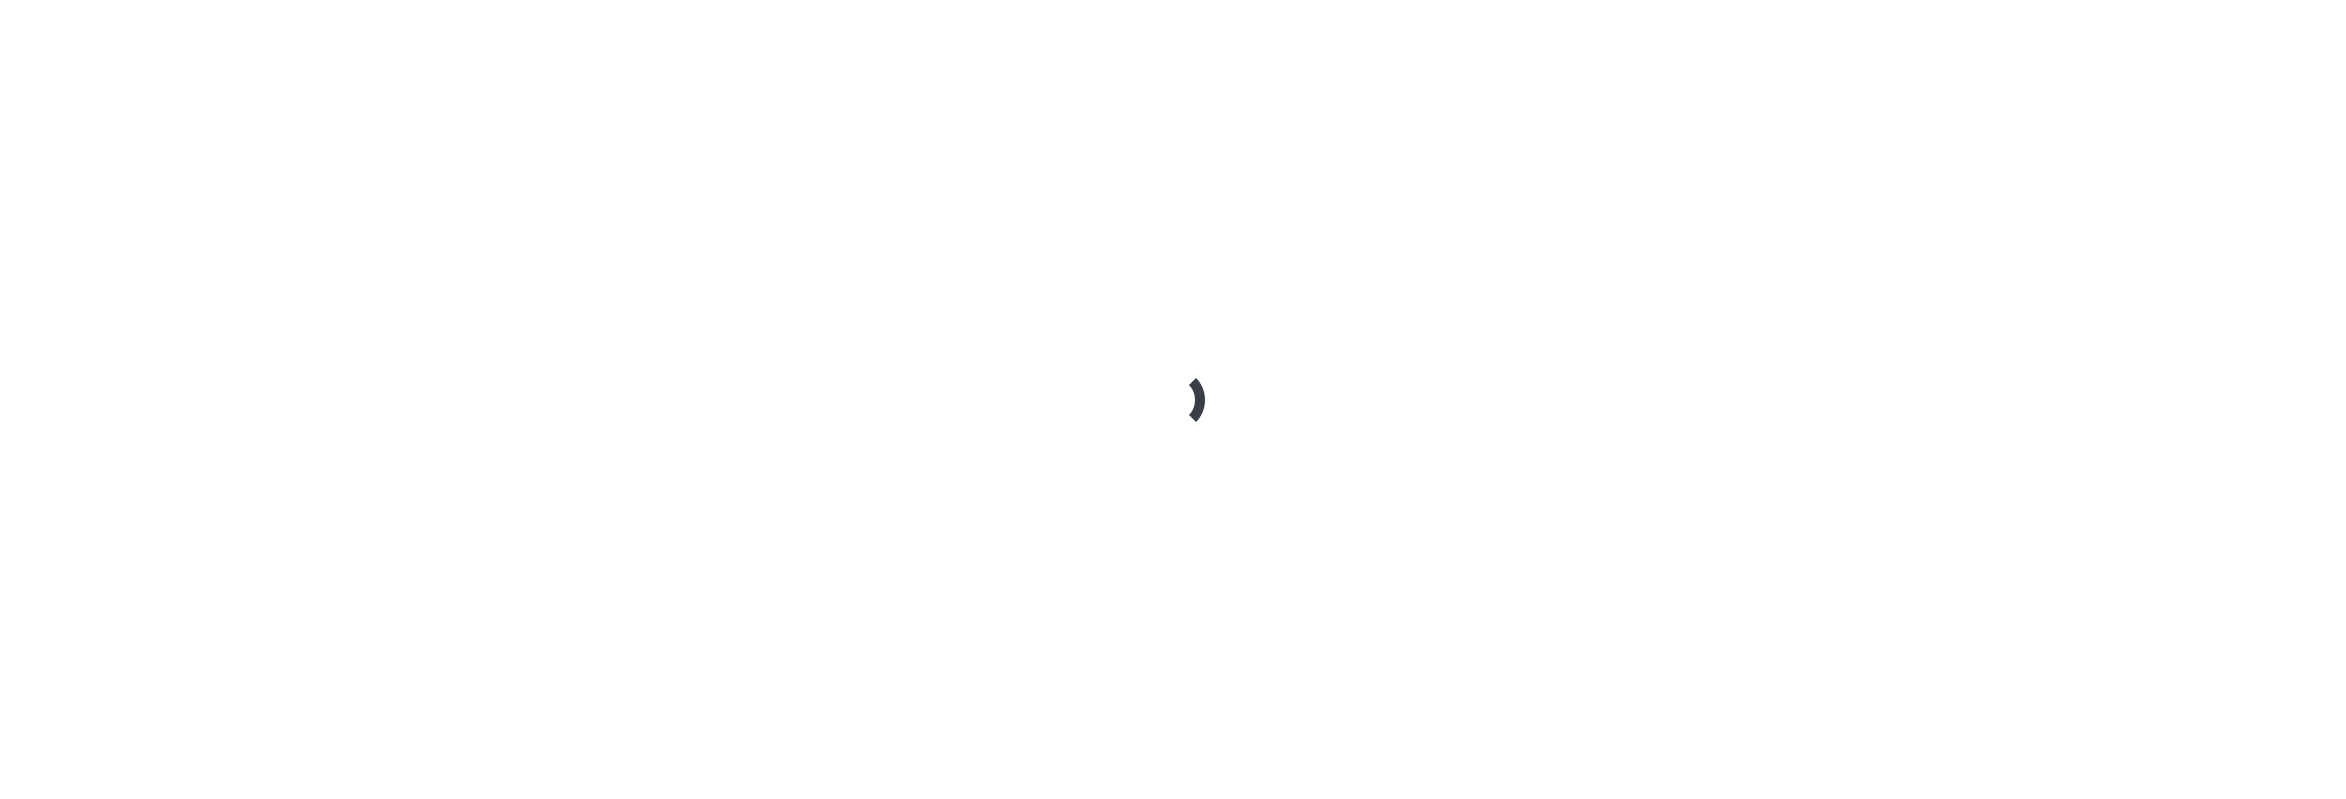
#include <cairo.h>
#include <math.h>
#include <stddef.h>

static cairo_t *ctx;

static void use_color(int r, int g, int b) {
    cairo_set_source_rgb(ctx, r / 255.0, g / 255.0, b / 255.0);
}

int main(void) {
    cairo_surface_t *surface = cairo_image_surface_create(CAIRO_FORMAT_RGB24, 2346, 799);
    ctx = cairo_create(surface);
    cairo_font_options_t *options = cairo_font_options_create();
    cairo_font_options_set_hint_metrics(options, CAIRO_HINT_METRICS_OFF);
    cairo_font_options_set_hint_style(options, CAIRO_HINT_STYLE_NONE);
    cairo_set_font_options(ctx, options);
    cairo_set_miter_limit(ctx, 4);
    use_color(255, 255, 255);
    cairo_paint(ctx);
    cairo_new_path(ctx);
    cairo_move_to(ctx, 1192.5, 381.5);
    cairo_curve_to(ctx, 1202.5, 391.5, 1202.5, 408.5, 1192.5, 418.5);
    cairo_move_to(ctx, 1192.5, 381.5);
    cairo_curve_to(ctx, 1202.5, 391.5, 1202.5, 408.5, 1192.5, 418.5);
    cairo_move_to(ctx, 1192.5, 381.5);
    cairo_curve_to(ctx, 1202.5, 391.5, 1202.5, 408.5, 1192.5, 418.5);
    use_color(57, 62, 70);
    cairo_set_line_width(ctx, 10);
    cairo_stroke(ctx);
    cairo_surface_write_to_png(surface, "result.png");
    cairo_font_options_destroy(options);
    cairo_destroy(ctx);
    cairo_surface_destroy(surface);
    return 0;
}
